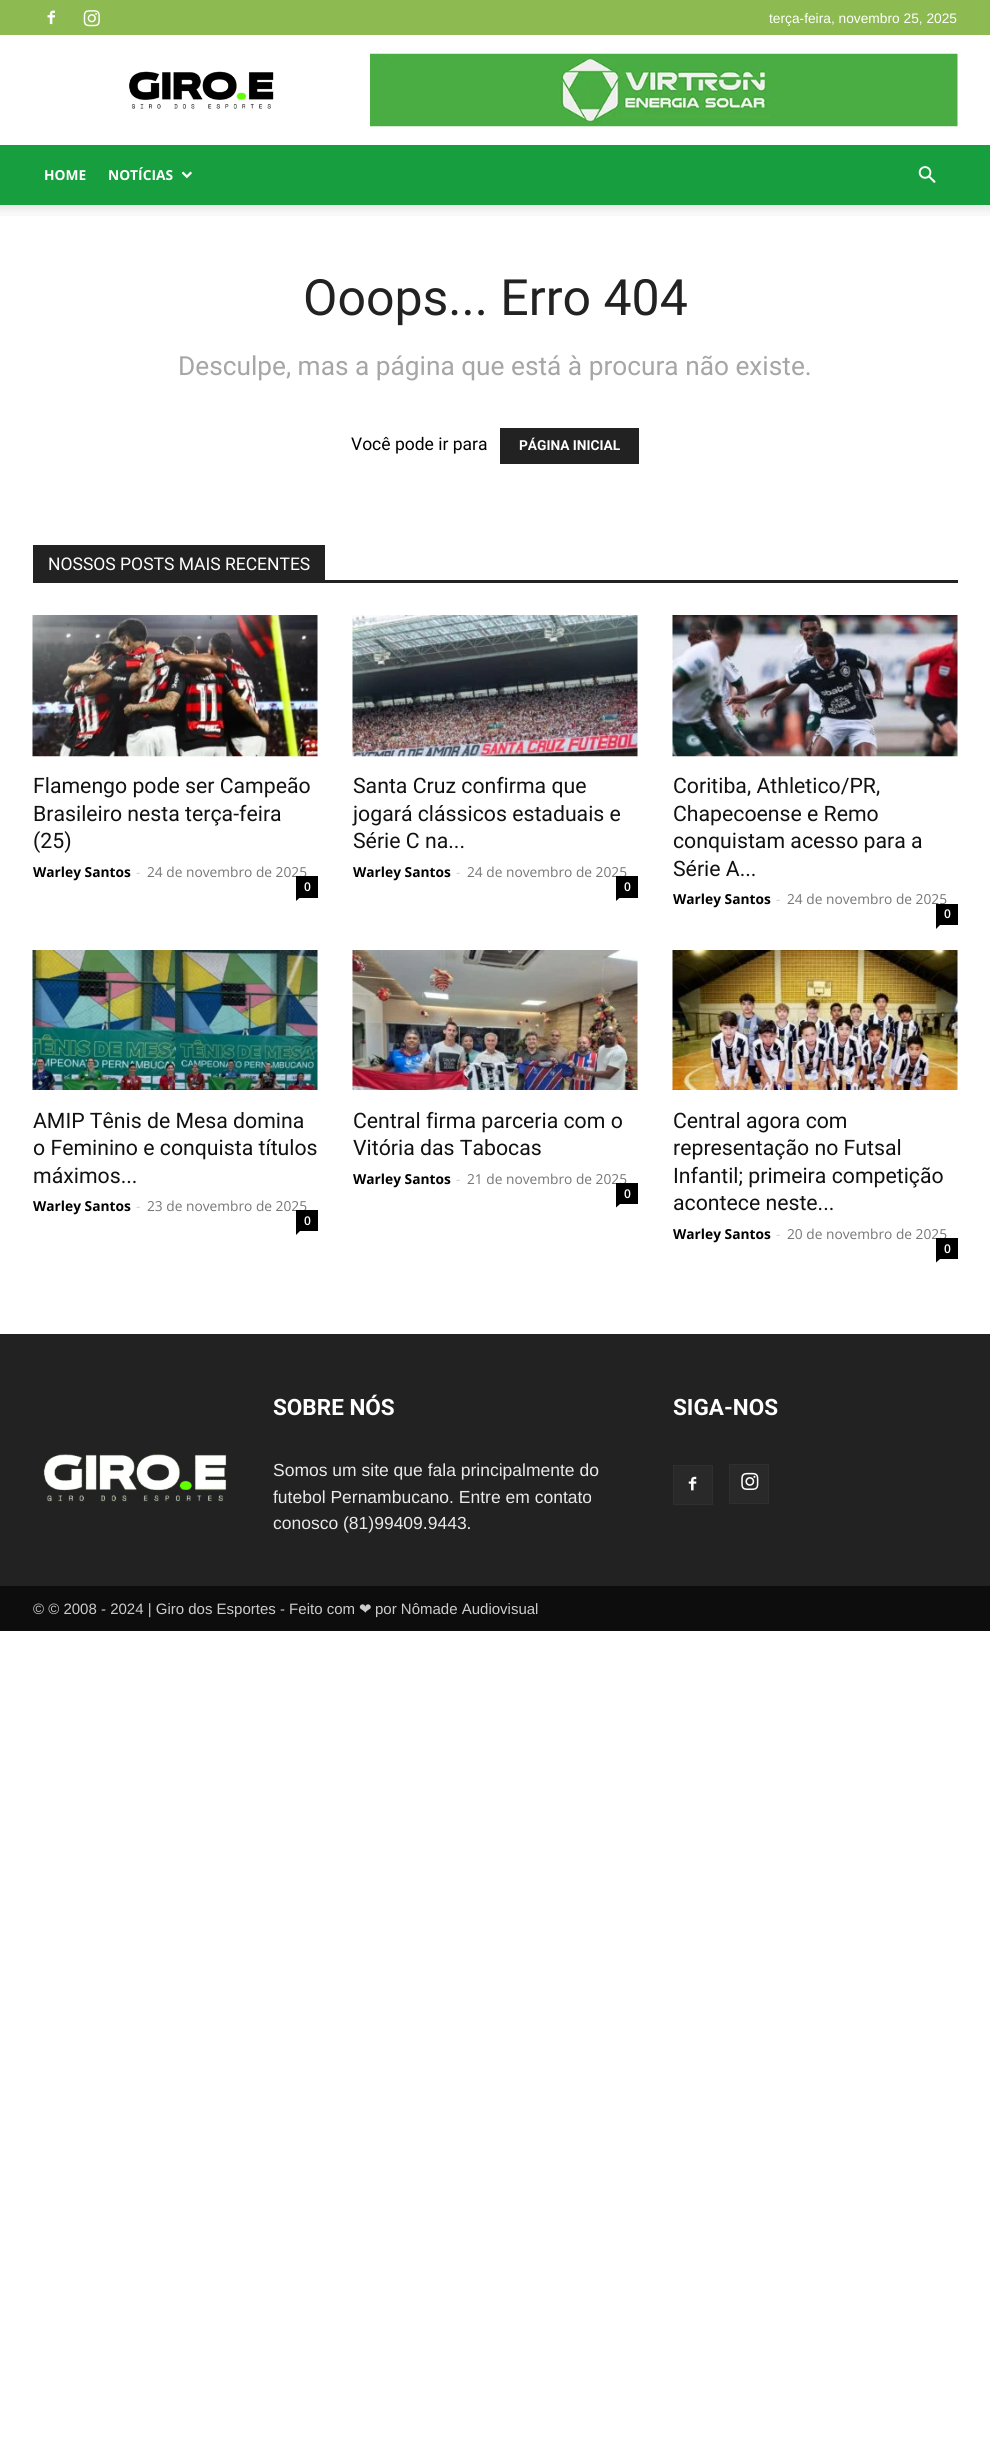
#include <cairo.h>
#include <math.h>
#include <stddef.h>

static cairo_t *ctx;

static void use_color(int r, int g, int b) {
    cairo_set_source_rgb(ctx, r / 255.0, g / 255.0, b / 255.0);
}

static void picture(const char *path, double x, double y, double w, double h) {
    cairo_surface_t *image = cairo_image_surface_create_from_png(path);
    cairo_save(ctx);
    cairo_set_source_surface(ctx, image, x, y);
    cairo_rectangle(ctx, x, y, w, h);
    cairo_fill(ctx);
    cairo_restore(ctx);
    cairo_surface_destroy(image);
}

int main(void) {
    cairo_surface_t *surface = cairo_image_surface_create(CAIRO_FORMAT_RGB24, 990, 2440);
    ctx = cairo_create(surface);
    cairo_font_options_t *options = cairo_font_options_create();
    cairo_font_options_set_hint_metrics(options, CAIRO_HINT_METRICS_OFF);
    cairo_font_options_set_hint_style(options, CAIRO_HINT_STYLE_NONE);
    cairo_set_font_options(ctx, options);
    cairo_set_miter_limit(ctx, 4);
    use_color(255, 255, 255);
    cairo_paint(ctx);
    use_color(142, 186, 82);
    cairo_rectangle(ctx, 0, 0, 990, 35);
    cairo_fill(ctx);
    picture("img1.png", 47, 10, 8, 15);
    picture("img2.png", 83, 10, 17, 17);
    cairo_select_font_face(ctx, "Liberation Sans", CAIRO_FONT_SLANT_NORMAL, CAIRO_FONT_WEIGHT_NORMAL);
    cairo_set_font_size(ctx, 13.75);
    use_color(255, 255, 255);
    cairo_move_to(ctx, 769, 23);
    cairo_show_text(ctx, "terça-feira, novembro 25, 2025");
    picture("img3.png", 129, 71, 145, 38);
    picture("img4.png", 370, 53, 588, 74);
    use_color(23, 159, 63);
    cairo_rectangle(ctx, 0, 145, 990, 60);
    cairo_fill(ctx);
    cairo_select_font_face(ctx, "Open Sans", CAIRO_FONT_SLANT_NORMAL, CAIRO_FONT_WEIGHT_BOLD);
    use_color(255, 255, 255);
    cairo_move_to(ctx, 44, 180);
    cairo_show_text(ctx, "HOME");
    cairo_move_to(ctx, 108, 180);
    cairo_show_text(ctx, "NOTÍCIAS");
    picture("img5.png", 181, 171, 11, 8);
    picture("img6.png", 918, 166, 18, 17);
    picture("img7.png", 0, 205, 990, 11);
    cairo_select_font_face(ctx, "Roboto", CAIRO_FONT_SLANT_NORMAL, CAIRO_FONT_WEIGHT_NORMAL);
    cairo_set_font_size(ctx, 50);
    use_color(34, 34, 34);
    cairo_move_to(ctx, 303, 315);
    cairo_show_text(ctx, "Ooops... Erro 404");
    cairo_set_font_size(ctx, 26.25);
    use_color(166, 166, 166);
    cairo_move_to(ctx, 178, 375);
    cairo_show_text(ctx, "Desculpe, mas a página que está à procura não existe.");
    cairo_set_font_size(ctx, 17.5);
    use_color(0, 0, 0);
    cairo_move_to(ctx, 351, 450);
    cairo_show_text(ctx, "Você pode ir para");
    use_color(34, 34, 34);
    cairo_rectangle(ctx, 500, 428, 139, 36);
    cairo_fill(ctx);
    cairo_select_font_face(ctx, "Roboto", CAIRO_FONT_SLANT_NORMAL, CAIRO_FONT_WEIGHT_BOLD);
    cairo_set_font_size(ctx, 13.75);
    use_color(255, 255, 255);
    cairo_move_to(ctx, 519, 450);
    cairo_show_text(ctx, "PÁGINA INICIAL");
    use_color(34, 34, 34);
    cairo_rectangle(ctx, 33, 580, 925, 3);
    cairo_fill(ctx);
    cairo_rectangle(ctx, 33, 545, 292, 35);
    cairo_fill(ctx);
    cairo_select_font_face(ctx, "Roboto", CAIRO_FONT_SLANT_NORMAL, CAIRO_FONT_WEIGHT_NORMAL);
    cairo_set_font_size(ctx, 17.5);
    use_color(255, 255, 255);
    cairo_move_to(ctx, 48, 570);
    cairo_show_text(ctx, "NOSSOS POSTS MAIS RECENTES");
    picture("img8.png", 32, 615, 286, 142);
    cairo_set_font_size(ctx, 21.25);
    use_color(17, 17, 17);
    cairo_move_to(ctx, 33, 793);
    cairo_show_text(ctx, "Flamengo pode ser Campeão");
    cairo_move_to(ctx, 33, 821);
    cairo_show_text(ctx, "Brasileiro nesta terça-feira");
    cairo_move_to(ctx, 33, 848);
    cairo_show_text(ctx, "(25)");
    cairo_select_font_face(ctx, "Open Sans", CAIRO_FONT_SLANT_NORMAL, CAIRO_FONT_WEIGHT_BOLD);
    cairo_set_font_size(ctx, 13.75);
    use_color(0, 0, 0);
    cairo_move_to(ctx, 33, 877);
    cairo_show_text(ctx, "Warley Santos");
    cairo_select_font_face(ctx, "Open Sans", CAIRO_FONT_SLANT_NORMAL, CAIRO_FONT_WEIGHT_NORMAL);
    use_color(204, 204, 204);
    cairo_move_to(ctx, 136, 877);
    cairo_show_text(ctx, "-");
    use_color(118, 118, 118);
    cairo_move_to(ctx, 147, 877);
    cairo_show_text(ctx, "24 de novembro de 2025");
    use_color(0, 0, 0);
    cairo_rectangle(ctx, 296, 876, 22, 22);
    cairo_fill(ctx);
    cairo_select_font_face(ctx, "Open Sans SemiBold", CAIRO_FONT_SLANT_NORMAL, CAIRO_FONT_WEIGHT_NORMAL);
    cairo_set_font_size(ctx, 12);
    use_color(255, 255, 255);
    cairo_move_to(ctx, 304, 891);
    cairo_show_text(ctx, "0");
    use_color(0, 0, 0);
    cairo_new_path(ctx);
    cairo_move_to(ctx, 296, 897.5);
    cairo_line_to(ctx, 300, 897.5);
    cairo_line_to(ctx, 296, 901);
    cairo_close_path(ctx);
    cairo_fill(ctx);
    picture("img9.png", 352, 615, 286, 142);
    cairo_select_font_face(ctx, "Roboto", CAIRO_FONT_SLANT_NORMAL, CAIRO_FONT_WEIGHT_NORMAL);
    cairo_set_font_size(ctx, 21.25);
    use_color(17, 17, 17);
    cairo_move_to(ctx, 353, 793);
    cairo_show_text(ctx, "Santa Cruz confirma que");
    cairo_move_to(ctx, 353, 821);
    cairo_show_text(ctx, "jogará clássicos estaduais e");
    cairo_move_to(ctx, 353, 848);
    cairo_show_text(ctx, "Série C na...");
    cairo_select_font_face(ctx, "Open Sans", CAIRO_FONT_SLANT_NORMAL, CAIRO_FONT_WEIGHT_BOLD);
    cairo_set_font_size(ctx, 13.75);
    use_color(0, 0, 0);
    cairo_move_to(ctx, 353, 877);
    cairo_show_text(ctx, "Warley Santos");
    cairo_select_font_face(ctx, "Open Sans", CAIRO_FONT_SLANT_NORMAL, CAIRO_FONT_WEIGHT_NORMAL);
    use_color(204, 204, 204);
    cairo_move_to(ctx, 456, 877);
    cairo_show_text(ctx, "-");
    use_color(118, 118, 118);
    cairo_move_to(ctx, 467, 877);
    cairo_show_text(ctx, "24 de novembro de 2025");
    use_color(0, 0, 0);
    cairo_rectangle(ctx, 616, 876, 22, 22);
    cairo_fill(ctx);
    cairo_select_font_face(ctx, "Open Sans SemiBold", CAIRO_FONT_SLANT_NORMAL, CAIRO_FONT_WEIGHT_NORMAL);
    cairo_set_font_size(ctx, 12);
    use_color(255, 255, 255);
    cairo_move_to(ctx, 624, 891);
    cairo_show_text(ctx, "0");
    use_color(0, 0, 0);
    cairo_new_path(ctx);
    cairo_move_to(ctx, 616, 897.5);
    cairo_line_to(ctx, 620, 897.5);
    cairo_line_to(ctx, 616, 901);
    cairo_close_path(ctx);
    cairo_fill(ctx);
    picture("img10.png", 672, 615, 286, 142);
    cairo_select_font_face(ctx, "Roboto", CAIRO_FONT_SLANT_NORMAL, CAIRO_FONT_WEIGHT_NORMAL);
    cairo_set_font_size(ctx, 21.25);
    use_color(17, 17, 17);
    cairo_move_to(ctx, 673, 793);
    cairo_show_text(ctx, "Coritiba, Athletico/PR,");
    cairo_move_to(ctx, 673, 821);
    cairo_show_text(ctx, "Chapecoense e Remo");
    cairo_move_to(ctx, 673, 848);
    cairo_show_text(ctx, "conquistam acesso para a");
    cairo_move_to(ctx, 673, 876);
    cairo_show_text(ctx, "Série A...");
    cairo_select_font_face(ctx, "Open Sans", CAIRO_FONT_SLANT_NORMAL, CAIRO_FONT_WEIGHT_BOLD);
    cairo_set_font_size(ctx, 13.75);
    use_color(0, 0, 0);
    cairo_move_to(ctx, 673, 904);
    cairo_show_text(ctx, "Warley Santos");
    cairo_select_font_face(ctx, "Open Sans", CAIRO_FONT_SLANT_NORMAL, CAIRO_FONT_WEIGHT_NORMAL);
    use_color(204, 204, 204);
    cairo_move_to(ctx, 776, 904);
    cairo_show_text(ctx, "-");
    use_color(118, 118, 118);
    cairo_move_to(ctx, 787, 904);
    cairo_show_text(ctx, "24 de novembro de 2025");
    use_color(0, 0, 0);
    cairo_rectangle(ctx, 936, 904, 22, 21);
    cairo_fill(ctx);
    cairo_select_font_face(ctx, "Open Sans SemiBold", CAIRO_FONT_SLANT_NORMAL, CAIRO_FONT_WEIGHT_NORMAL);
    cairo_set_font_size(ctx, 12);
    use_color(255, 255, 255);
    cairo_move_to(ctx, 944, 918);
    cairo_show_text(ctx, "0");
    use_color(0, 0, 0);
    cairo_new_path(ctx);
    cairo_move_to(ctx, 936, 925);
    cairo_line_to(ctx, 940, 925);
    cairo_line_to(ctx, 936, 929);
    cairo_close_path(ctx);
    cairo_fill(ctx);
    picture("img11.png", 32, 950, 286, 140);
    cairo_select_font_face(ctx, "Roboto", CAIRO_FONT_SLANT_NORMAL, CAIRO_FONT_WEIGHT_NORMAL);
    cairo_set_font_size(ctx, 21.25);
    use_color(17, 17, 17);
    cairo_move_to(ctx, 33, 1128);
    cairo_show_text(ctx, "AMIP Tênis de Mesa domina");
    cairo_move_to(ctx, 33, 1155);
    cairo_show_text(ctx, "o Feminino e conquista títulos");
    cairo_move_to(ctx, 33, 1183);
    cairo_show_text(ctx, "máximos...");
    cairo_select_font_face(ctx, "Open Sans", CAIRO_FONT_SLANT_NORMAL, CAIRO_FONT_WEIGHT_BOLD);
    cairo_set_font_size(ctx, 13.75);
    use_color(0, 0, 0);
    cairo_move_to(ctx, 33, 1211);
    cairo_show_text(ctx, "Warley Santos");
    cairo_select_font_face(ctx, "Open Sans", CAIRO_FONT_SLANT_NORMAL, CAIRO_FONT_WEIGHT_NORMAL);
    use_color(204, 204, 204);
    cairo_move_to(ctx, 136, 1211);
    cairo_show_text(ctx, "-");
    use_color(118, 118, 118);
    cairo_move_to(ctx, 147, 1211);
    cairo_show_text(ctx, "23 de novembro de 2025");
    use_color(0, 0, 0);
    cairo_rectangle(ctx, 296, 1210, 22, 21);
    cairo_fill(ctx);
    cairo_select_font_face(ctx, "Open Sans SemiBold", CAIRO_FONT_SLANT_NORMAL, CAIRO_FONT_WEIGHT_NORMAL);
    cairo_set_font_size(ctx, 12);
    use_color(255, 255, 255);
    cairo_move_to(ctx, 304, 1225);
    cairo_show_text(ctx, "0");
    use_color(0, 0, 0);
    cairo_new_path(ctx);
    cairo_move_to(ctx, 296, 1231);
    cairo_line_to(ctx, 300, 1231);
    cairo_line_to(ctx, 296, 1235);
    cairo_close_path(ctx);
    cairo_fill(ctx);
    picture("img12.png", 352, 950, 286, 140);
    cairo_select_font_face(ctx, "Roboto", CAIRO_FONT_SLANT_NORMAL, CAIRO_FONT_WEIGHT_NORMAL);
    cairo_set_font_size(ctx, 21.25);
    use_color(17, 17, 17);
    cairo_move_to(ctx, 353, 1128);
    cairo_show_text(ctx, "Central firma parceria com o");
    cairo_move_to(ctx, 353, 1155);
    cairo_show_text(ctx, "Vitória das Tabocas");
    cairo_select_font_face(ctx, "Open Sans", CAIRO_FONT_SLANT_NORMAL, CAIRO_FONT_WEIGHT_BOLD);
    cairo_set_font_size(ctx, 13.75);
    use_color(0, 0, 0);
    cairo_move_to(ctx, 353, 1184);
    cairo_show_text(ctx, "Warley Santos");
    cairo_select_font_face(ctx, "Open Sans", CAIRO_FONT_SLANT_NORMAL, CAIRO_FONT_WEIGHT_NORMAL);
    use_color(204, 204, 204);
    cairo_move_to(ctx, 456, 1184);
    cairo_show_text(ctx, "-");
    use_color(118, 118, 118);
    cairo_move_to(ctx, 467, 1184);
    cairo_show_text(ctx, "21 de novembro de 2025");
    use_color(0, 0, 0);
    cairo_rectangle(ctx, 616, 1183, 22, 21);
    cairo_fill(ctx);
    cairo_select_font_face(ctx, "Open Sans SemiBold", CAIRO_FONT_SLANT_NORMAL, CAIRO_FONT_WEIGHT_NORMAL);
    cairo_set_font_size(ctx, 12);
    use_color(255, 255, 255);
    cairo_move_to(ctx, 624, 1198);
    cairo_show_text(ctx, "0");
    use_color(0, 0, 0);
    cairo_new_path(ctx);
    cairo_move_to(ctx, 616, 1204);
    cairo_line_to(ctx, 620, 1204);
    cairo_line_to(ctx, 616, 1207.5);
    cairo_close_path(ctx);
    cairo_fill(ctx);
    picture("img13.png", 672, 950, 286, 140);
    cairo_select_font_face(ctx, "Roboto", CAIRO_FONT_SLANT_NORMAL, CAIRO_FONT_WEIGHT_NORMAL);
    cairo_set_font_size(ctx, 21.25);
    use_color(17, 17, 17);
    cairo_move_to(ctx, 673, 1128);
    cairo_show_text(ctx, "Central agora com");
    cairo_move_to(ctx, 673, 1155);
    cairo_show_text(ctx, "representação no Futsal");
    cairo_move_to(ctx, 673, 1183);
    cairo_show_text(ctx, "Infantil; primeira competição");
    cairo_move_to(ctx, 673, 1210);
    cairo_show_text(ctx, "acontece neste...");
    cairo_select_font_face(ctx, "Open Sans", CAIRO_FONT_SLANT_NORMAL, CAIRO_FONT_WEIGHT_BOLD);
    cairo_set_font_size(ctx, 13.75);
    use_color(0, 0, 0);
    cairo_move_to(ctx, 673, 1239);
    cairo_show_text(ctx, "Warley Santos");
    cairo_select_font_face(ctx, "Open Sans", CAIRO_FONT_SLANT_NORMAL, CAIRO_FONT_WEIGHT_NORMAL);
    use_color(204, 204, 204);
    cairo_move_to(ctx, 776, 1239);
    cairo_show_text(ctx, "-");
    use_color(118, 118, 118);
    cairo_move_to(ctx, 787, 1239);
    cairo_show_text(ctx, "20 de novembro de 2025");
    use_color(0, 0, 0);
    cairo_rectangle(ctx, 936, 1238, 22, 21);
    cairo_fill(ctx);
    cairo_select_font_face(ctx, "Open Sans SemiBold", CAIRO_FONT_SLANT_NORMAL, CAIRO_FONT_WEIGHT_NORMAL);
    cairo_set_font_size(ctx, 12);
    use_color(255, 255, 255);
    cairo_move_to(ctx, 944, 1253);
    cairo_show_text(ctx, "0");
    use_color(0, 0, 0);
    cairo_new_path(ctx);
    cairo_move_to(ctx, 936, 1259);
    cairo_line_to(ctx, 940, 1259);
    cairo_line_to(ctx, 936, 1262.5);
    cairo_close_path(ctx);
    cairo_fill(ctx);
    use_color(34, 34, 34);
    cairo_rectangle(ctx, 0, 1334, 990, 252);
    cairo_fill(ctx);
    cairo_select_font_face(ctx, "Roboto", CAIRO_FONT_SLANT_NORMAL, CAIRO_FONT_WEIGHT_BOLD);
    cairo_set_font_size(ctx, 22.5);
    use_color(255, 255, 255);
    cairo_move_to(ctx, 273, 1415);
    cairo_show_text(ctx, "SOBRE NÓS");
    cairo_select_font_face(ctx, "Liberation Sans", CAIRO_FONT_SLANT_NORMAL, CAIRO_FONT_WEIGHT_NORMAL);
    cairo_set_font_size(ctx, 17.5);
    use_color(234, 234, 234);
    cairo_move_to(ctx, 273, 1476);
    cairo_show_text(ctx, "Somos um site que fala principalmente do");
    cairo_move_to(ctx, 273, 1503);
    cairo_show_text(ctx, "futebol Pernambucano. Entre em contato");
    cairo_move_to(ctx, 273, 1529);
    cairo_show_text(ctx, "conosco (81)99409.9443.");
    cairo_select_font_face(ctx, "Roboto", CAIRO_FONT_SLANT_NORMAL, CAIRO_FONT_WEIGHT_BOLD);
    cairo_set_font_size(ctx, 22.5);
    use_color(255, 255, 255);
    cairo_move_to(ctx, 673, 1415);
    cairo_show_text(ctx, "SIGA-NOS");
    use_color(41, 41, 41);
    cairo_rectangle(ctx, 674, 1466, 38, 38);
    cairo_fill(ctx);
    picture("img14.png", 688, 1476, 9, 15);
    cairo_rectangle(ctx, 673.5, 1465.5, 39, 39);
    use_color(47, 47, 47);
    cairo_set_line_width(ctx, 1);
    cairo_stroke(ctx);
    use_color(41, 41, 41);
    cairo_rectangle(ctx, 730, 1465, 38, 38);
    cairo_fill(ctx);
    picture("img15.png", 741, 1472, 18, 18);
    cairo_rectangle(ctx, 729.5, 1464.5, 39, 39);
    use_color(47, 47, 47);
    cairo_stroke(ctx);
    picture("img16.png", 43, 1454, 184, 48);
    use_color(13, 13, 13);
    cairo_rectangle(ctx, 0, 1586, 990, 45);
    cairo_fill(ctx);
    cairo_select_font_face(ctx, "Liberation Sans", CAIRO_FONT_SLANT_NORMAL, CAIRO_FONT_WEIGHT_NORMAL);
    cairo_set_font_size(ctx, 15);
    use_color(204, 204, 204);
    cairo_move_to(ctx, 33, 1614);
    cairo_show_text(ctx, "© © 2008 - 2024 | Giro dos Esportes - Feito com");
    cairo_select_font_face(ctx, "DejaVu Sans", CAIRO_FONT_SLANT_NORMAL, CAIRO_FONT_WEIGHT_NORMAL);
    cairo_move_to(ctx, 359, 1614);
    cairo_show_text(ctx, "❤");
    cairo_select_font_face(ctx, "Liberation Sans", CAIRO_FONT_SLANT_NORMAL, CAIRO_FONT_WEIGHT_NORMAL);
    cairo_move_to(ctx, 375, 1614);
    cairo_show_text(ctx, "por Nômade Audiovisual");
    cairo_surface_write_to_png(surface, "result.png");
    cairo_font_options_destroy(options);
    cairo_destroy(ctx);
    cairo_surface_destroy(surface);
    return 0;
}
